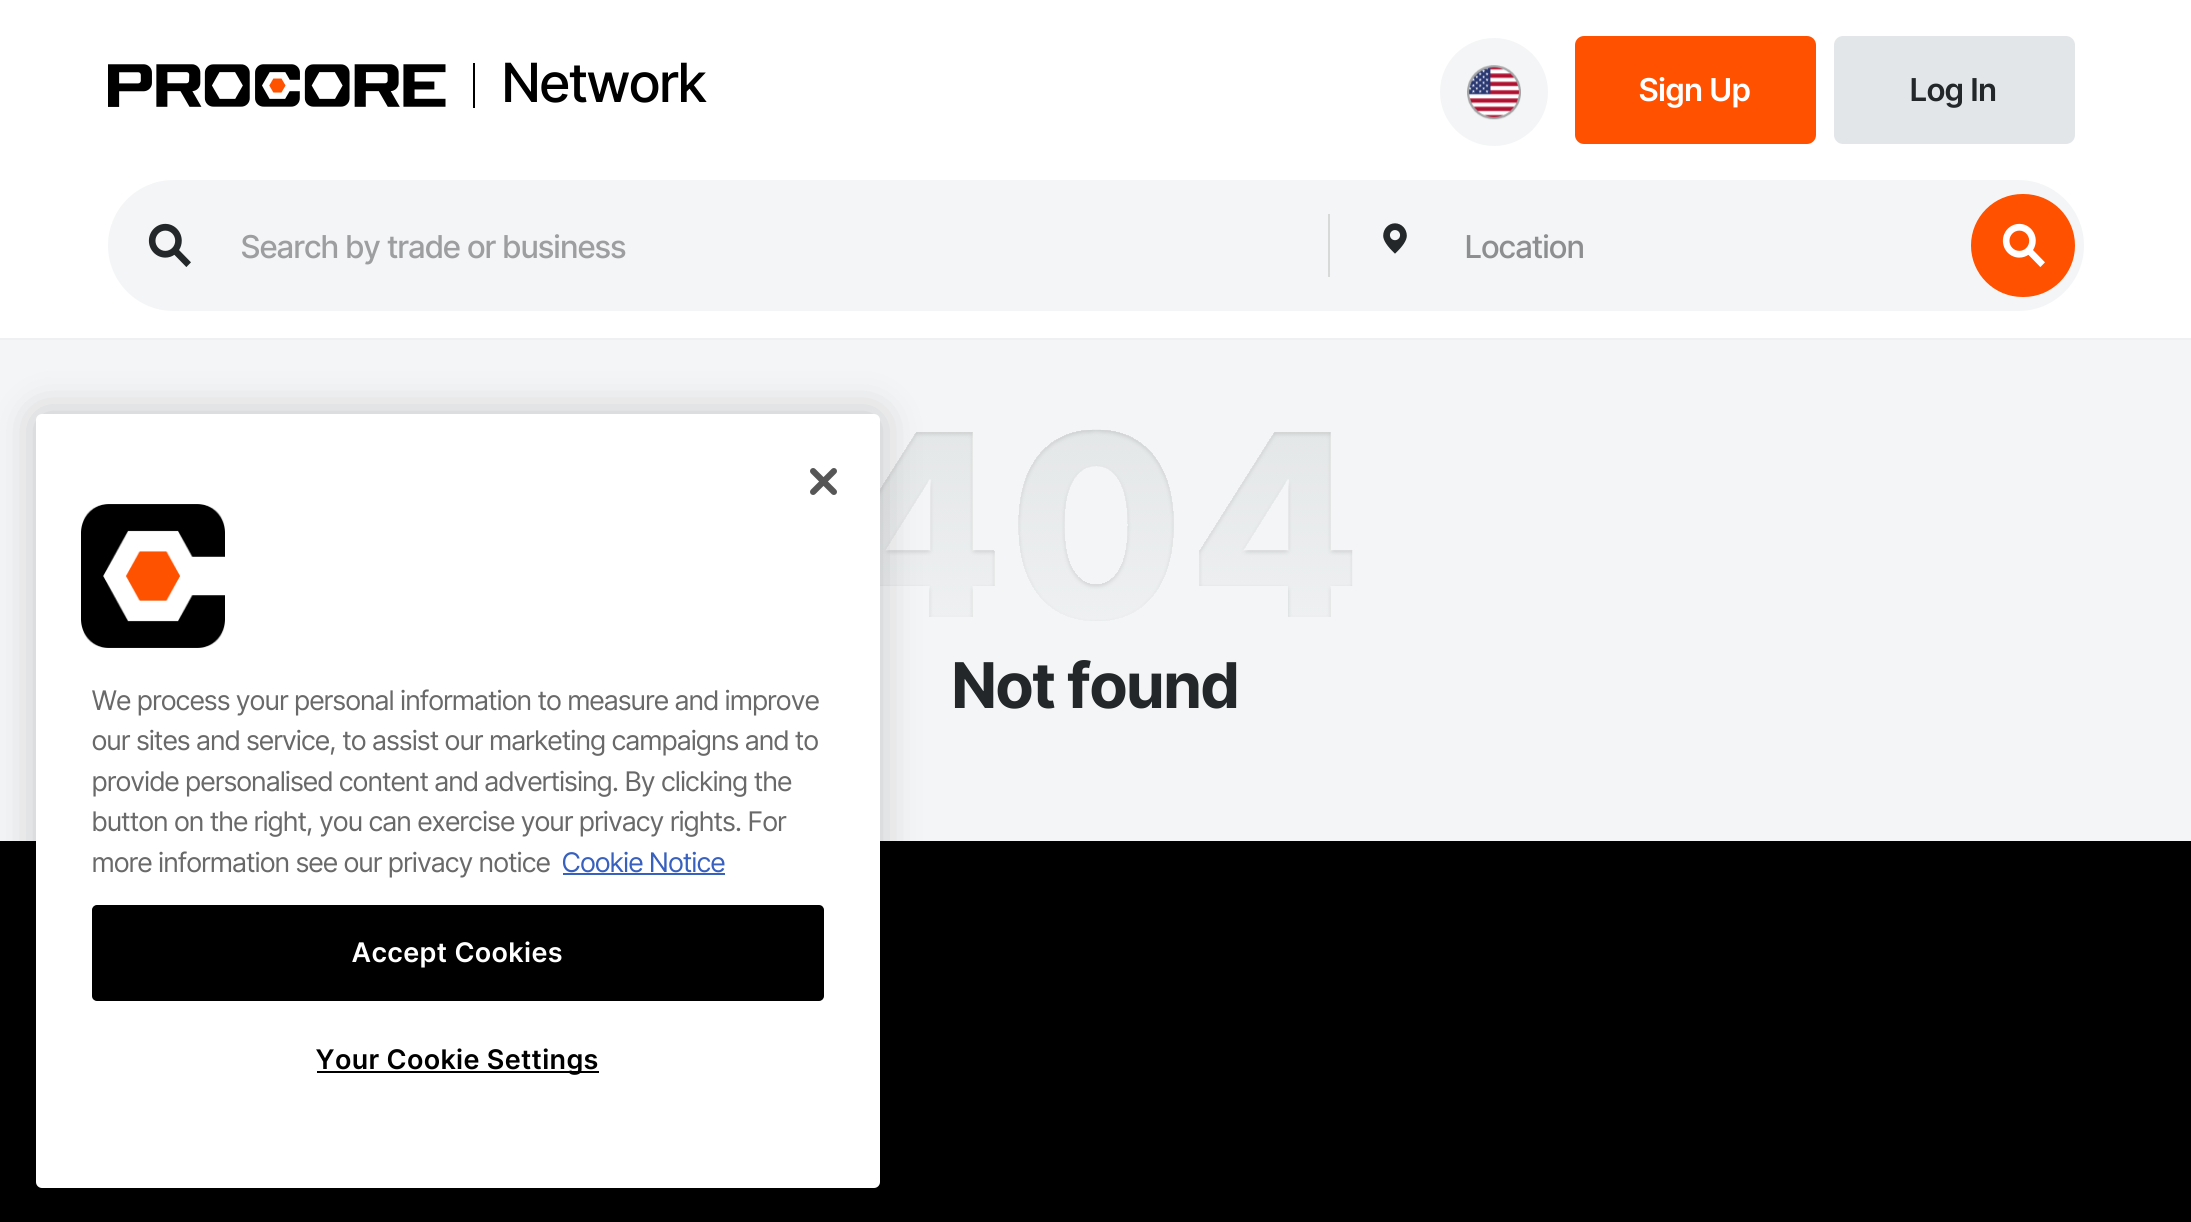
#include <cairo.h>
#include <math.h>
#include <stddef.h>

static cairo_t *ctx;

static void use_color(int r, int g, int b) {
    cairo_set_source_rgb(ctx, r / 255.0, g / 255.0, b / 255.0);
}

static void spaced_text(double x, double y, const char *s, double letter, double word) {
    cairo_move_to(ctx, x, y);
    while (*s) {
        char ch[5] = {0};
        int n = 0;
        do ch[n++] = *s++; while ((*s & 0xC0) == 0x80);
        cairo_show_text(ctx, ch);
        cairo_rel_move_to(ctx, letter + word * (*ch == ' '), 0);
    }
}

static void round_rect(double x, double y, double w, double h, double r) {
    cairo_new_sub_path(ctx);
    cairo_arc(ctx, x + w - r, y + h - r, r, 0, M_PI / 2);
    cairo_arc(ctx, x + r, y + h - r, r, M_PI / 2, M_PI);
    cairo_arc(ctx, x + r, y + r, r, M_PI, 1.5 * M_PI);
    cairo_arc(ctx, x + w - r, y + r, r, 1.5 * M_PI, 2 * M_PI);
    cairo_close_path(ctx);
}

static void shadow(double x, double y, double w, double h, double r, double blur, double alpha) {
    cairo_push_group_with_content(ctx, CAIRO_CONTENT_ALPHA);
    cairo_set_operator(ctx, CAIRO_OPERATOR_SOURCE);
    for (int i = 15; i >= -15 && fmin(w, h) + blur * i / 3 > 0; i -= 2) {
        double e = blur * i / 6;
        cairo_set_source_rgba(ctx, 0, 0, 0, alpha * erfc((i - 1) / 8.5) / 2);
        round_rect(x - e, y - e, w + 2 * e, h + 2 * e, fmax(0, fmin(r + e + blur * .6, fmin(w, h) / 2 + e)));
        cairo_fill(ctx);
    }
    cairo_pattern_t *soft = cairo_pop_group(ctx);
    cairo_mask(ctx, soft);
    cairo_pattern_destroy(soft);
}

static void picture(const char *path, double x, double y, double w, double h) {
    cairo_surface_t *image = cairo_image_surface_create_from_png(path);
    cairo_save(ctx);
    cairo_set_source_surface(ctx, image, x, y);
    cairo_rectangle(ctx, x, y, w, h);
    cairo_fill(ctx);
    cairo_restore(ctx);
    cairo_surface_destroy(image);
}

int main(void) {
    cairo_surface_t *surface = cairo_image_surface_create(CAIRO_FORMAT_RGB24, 2191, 1222);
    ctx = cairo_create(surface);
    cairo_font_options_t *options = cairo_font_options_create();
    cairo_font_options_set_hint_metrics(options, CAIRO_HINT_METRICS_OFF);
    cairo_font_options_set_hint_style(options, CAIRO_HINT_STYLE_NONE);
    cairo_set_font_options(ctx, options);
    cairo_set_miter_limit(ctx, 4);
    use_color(244, 245, 246);
    cairo_paint(ctx);
    use_color(255, 255, 255);
    cairo_rectangle(ctx, 0, 0, 2191, 338);
    cairo_fill(ctx);
    use_color(238, 240, 241);
    cairo_rectangle(ctx, 0, 338, 2191, 2);
    cairo_fill(ctx);
    picture("img1.png", 108, 64, 338, 43);
    use_color(0, 0, 0);
    cairo_rectangle(ctx, 473, 63, 2, 45);
    cairo_fill(ctx);
    cairo_select_font_face(ctx, "Inter Tight Medium", CAIRO_FONT_SLANT_NORMAL, CAIRO_FONT_WEIGHT_NORMAL);
    cairo_set_font_size(ctx, 54);
    cairo_move_to(ctx, 502, 102);
    cairo_show_text(ctx, "Network");
    use_color(244, 245, 246);
    cairo_new_path(ctx);
    cairo_arc(ctx, 1494, 92, 54, 0, 2 * M_PI);
    cairo_fill(ctx);
    picture("img2.png", 1467, 65, 54, 55);
    use_color(255, 81, 0);
    round_rect(1575, 36, 241, 108, 9);
    cairo_fill(ctx);
    cairo_select_font_face(ctx, "Inter Tight SemiBold", CAIRO_FONT_SLANT_NORMAL, CAIRO_FONT_WEIGHT_NORMAL);
    cairo_set_font_size(ctx, 31.5);
    use_color(255, 255, 255);
    spaced_text(1639, 101, "Sign Up", 0.25, 0);
    use_color(227, 230, 232);
    round_rect(1834, 36, 241, 108, 9);
    cairo_fill(ctx);
    use_color(35, 39, 41);
    spaced_text(1910, 101, "Log In", 0.25, 0);
    use_color(244, 245, 246);
    round_rect(108, 180, 1976, 131, 65.5);
    cairo_fill(ctx);
    picture("img3.png", 148, 223, 43, 44);
    cairo_select_font_face(ctx, "Inter Tight Medium", CAIRO_FONT_SLANT_NORMAL, CAIRO_FONT_WEIGHT_NORMAL);
    use_color(156, 158, 160);
    cairo_move_to(ctx, 241, 258);
    cairo_show_text(ctx, "Search by trade or business");
    use_color(215, 216, 216);
    cairo_rectangle(ctx, 1328, 214, 2, 63);
    cairo_fill(ctx);
    picture("img4.png", 1383, 223, 24, 31);
    use_color(140, 142, 144);
    cairo_move_to(ctx, 1465, 258);
    cairo_show_text(ctx, "Location");
    use_color(255, 81, 0);
    round_rect(1971, 194, 104, 103, 51.5);
    cairo_fill(ctx);
    picture("img5.png", 2002, 223, 43, 44);
    picture("img6.png", 880, 429, 473, 192);
    cairo_select_font_face(ctx, "Inter Tight", CAIRO_FONT_SLANT_NORMAL, CAIRO_FONT_WEIGHT_BOLD);
    cairo_set_font_size(ctx, 63);
    use_color(35, 39, 41);
    cairo_move_to(ctx, 952, 708);
    cairo_show_text(ctx, "Not found");
    use_color(0, 0, 0);
    cairo_rectangle(ctx, 0, 841, 2191, 381);
    cairo_fill(ctx);
    use_color(0, 0, 0);
    shadow(36, 414, 844, 774, 6, 20, 0.2);
    use_color(255, 255, 255);
    round_rect(36, 414, 844, 774, 6);
    cairo_fill(ctx);
    picture("img7.png", 810, 468, 27, 27);
    picture("img8.png", 81, 504, 144, 144);
    cairo_select_font_face(ctx, "Inter Tight", CAIRO_FONT_SLANT_NORMAL, CAIRO_FONT_WEIGHT_NORMAL);
    cairo_set_font_size(ctx, 27);
    use_color(105, 105, 105);
    cairo_move_to(ctx, 92, 710);
    cairo_show_text(ctx, "We process your personal information to measure and improve");
    cairo_move_to(ctx, 92, 750);
    cairo_show_text(ctx, "our sites and service, to assist our marketing campaigns and to");
    cairo_move_to(ctx, 92, 791);
    cairo_show_text(ctx, "provide personalised content and advertising. By clicking the");
    cairo_move_to(ctx, 92, 831);
    cairo_show_text(ctx, "button on the right, you can exercise your privacy rights. For");
    cairo_move_to(ctx, 92, 872);
    cairo_show_text(ctx, "more information see our privacy notice");
    use_color(56, 96, 190);
    cairo_move_to(ctx, 562, 872);
    cairo_show_text(ctx, "Cookie Notice");
    cairo_rectangle(ctx, 563, 873, 162, 2);
    cairo_fill(ctx);
    use_color(0, 0, 0);
    round_rect(93, 906, 730, 94, 4);
    cairo_fill_preserve(ctx);
    cairo_stroke(ctx);
    cairo_select_font_face(ctx, "Inter Tight SemiBold", CAIRO_FONT_SLANT_NORMAL, CAIRO_FONT_WEIGHT_NORMAL);
    use_color(255, 255, 255);
    spaced_text(352, 962, "Accept Cookies", 1.35, 0);
    use_color(0, 0, 0);
    cairo_rectangle(ctx, 317, 1071, 282, 2);
    cairo_fill(ctx);
    spaced_text(316, 1069, "Your Cookie Settings", 1.35, 0);
    cairo_surface_write_to_png(surface, "result.png");
    cairo_font_options_destroy(options);
    cairo_destroy(ctx);
    cairo_surface_destroy(surface);
    return 0;
}
